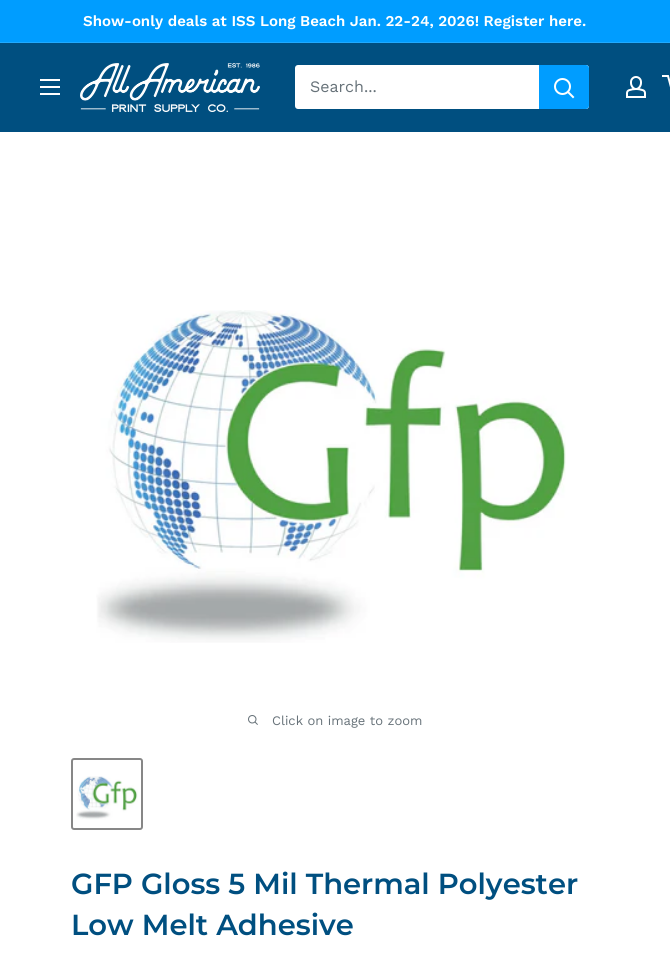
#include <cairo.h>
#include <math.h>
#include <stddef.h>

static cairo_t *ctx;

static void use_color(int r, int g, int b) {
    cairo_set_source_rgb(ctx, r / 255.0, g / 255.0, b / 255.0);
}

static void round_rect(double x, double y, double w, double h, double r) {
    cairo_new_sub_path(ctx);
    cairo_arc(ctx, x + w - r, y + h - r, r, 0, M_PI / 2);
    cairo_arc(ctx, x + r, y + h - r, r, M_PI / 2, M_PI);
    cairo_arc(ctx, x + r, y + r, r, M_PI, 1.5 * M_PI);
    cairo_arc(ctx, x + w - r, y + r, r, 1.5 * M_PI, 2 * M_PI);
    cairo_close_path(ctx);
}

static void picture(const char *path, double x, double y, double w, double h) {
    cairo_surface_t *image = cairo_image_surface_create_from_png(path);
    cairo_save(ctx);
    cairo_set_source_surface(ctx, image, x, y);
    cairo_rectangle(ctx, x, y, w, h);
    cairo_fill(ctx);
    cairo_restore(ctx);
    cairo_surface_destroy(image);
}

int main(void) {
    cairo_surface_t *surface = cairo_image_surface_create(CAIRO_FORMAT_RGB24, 670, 969);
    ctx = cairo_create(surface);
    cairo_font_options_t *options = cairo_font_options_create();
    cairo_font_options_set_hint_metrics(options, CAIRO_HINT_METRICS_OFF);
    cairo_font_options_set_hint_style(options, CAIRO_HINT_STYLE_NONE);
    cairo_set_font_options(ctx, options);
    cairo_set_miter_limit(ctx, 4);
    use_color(255, 255, 255);
    cairo_paint(ctx);
    use_color(0, 157, 255);
    cairo_rectangle(ctx, 0, 0, 670, 42);
    cairo_fill(ctx);
    use_color(32, 170, 255);
    cairo_rectangle(ctx, 0, 42, 670, 1);
    cairo_fill(ctx);
    cairo_select_font_face(ctx, "Work Sans SemiBold", CAIRO_FONT_SLANT_NORMAL, CAIRO_FONT_WEIGHT_NORMAL);
    cairo_set_font_size(ctx, 15);
    use_color(255, 255, 255);
    cairo_move_to(ctx, 83, 26);
    cairo_show_text(ctx, "Show-only deals at ISS Long Beach Jan. 22-24, 2026! Register here.");
    use_color(0, 79, 128);
    cairo_rectangle(ctx, 0, 43, 670, 89);
    cairo_fill(ctx);
    picture("img1.png", 40, 79, 20, 16);
    picture("img2.png", 80, 63, 180, 49);
    use_color(255, 255, 255);
    round_rect(295, 65, 294, 44, 3);
    cairo_fill(ctx);
    cairo_select_font_face(ctx, "Work Sans", CAIRO_FONT_SLANT_NORMAL, CAIRO_FONT_WEIGHT_NORMAL);
    cairo_set_font_size(ctx, 16);
    use_color(103, 114, 121);
    cairo_move_to(ctx, 310, 92);
    cairo_show_text(ctx, "Search...");
    use_color(0, 157, 255);
    cairo_new_path(ctx);
    cairo_move_to(ctx, 539, 65);
    cairo_line_to(ctx, 586, 65);
    cairo_curve_to(ctx, 587.5, 65, 589, 66.5, 589, 68);
    cairo_line_to(ctx, 589, 106);
    cairo_curve_to(ctx, 589, 107.5, 587.5, 109, 586, 109);
    cairo_line_to(ctx, 539, 109);
    cairo_close_path(ctx);
    cairo_fill(ctx);
    cairo_new_path(ctx);
    cairo_move_to(ctx, 573, 97);
    cairo_line_to(ctx, 568, 92);
    use_color(255, 255, 255);
    cairo_set_line_cap(ctx, CAIRO_LINE_CAP_SQUARE);
    cairo_stroke(ctx);
    cairo_arc(ctx, 562.5, 86.5, 7.5, 0, 2 * M_PI);
    cairo_set_line_cap(ctx, CAIRO_LINE_CAP_BUTT);
    cairo_stroke(ctx);
    picture("img3.png", 626, 76, 20, 22);
    cairo_new_path(ctx);
    cairo_move_to(ctx, 669.5, 81);
    cairo_line_to(ctx, 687.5, 81);
    cairo_line_to(ctx, 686, 91);
    cairo_line_to(ctx, 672, 91);
    cairo_line_to(ctx, 668, 76);
    cairo_line_to(ctx, 662, 76);
    cairo_stroke(ctx);
    picture("img4.png", 96, 310, 470, 333);
    picture("img5.png", 248, 715, 10, 10);
    cairo_set_font_size(ctx, 13);
    use_color(103, 114, 121);
    cairo_move_to(ctx, 272, 725);
    cairo_show_text(ctx, "Click on image to zoom");
    round_rect(72, 759, 70, 70, 2);
    use_color(135, 135, 135);
    cairo_stroke(ctx);
    picture("img6.png", 76, 776, 62, 44);
    cairo_select_font_face(ctx, "Montserrat SemiBold", CAIRO_FONT_SLANT_NORMAL, CAIRO_FONT_WEIGHT_NORMAL);
    cairo_set_font_size(ctx, 29);
    use_color(0, 79, 128);
    cairo_move_to(ctx, 71, 894);
    cairo_show_text(ctx, "GFP Gloss 5 Mil Thermal Polyester");
    cairo_move_to(ctx, 71, 935);
    cairo_show_text(ctx, "Low Melt Adhesive");
    cairo_surface_write_to_png(surface, "result.png");
    cairo_font_options_destroy(options);
    cairo_destroy(ctx);
    cairo_surface_destroy(surface);
    return 0;
}
